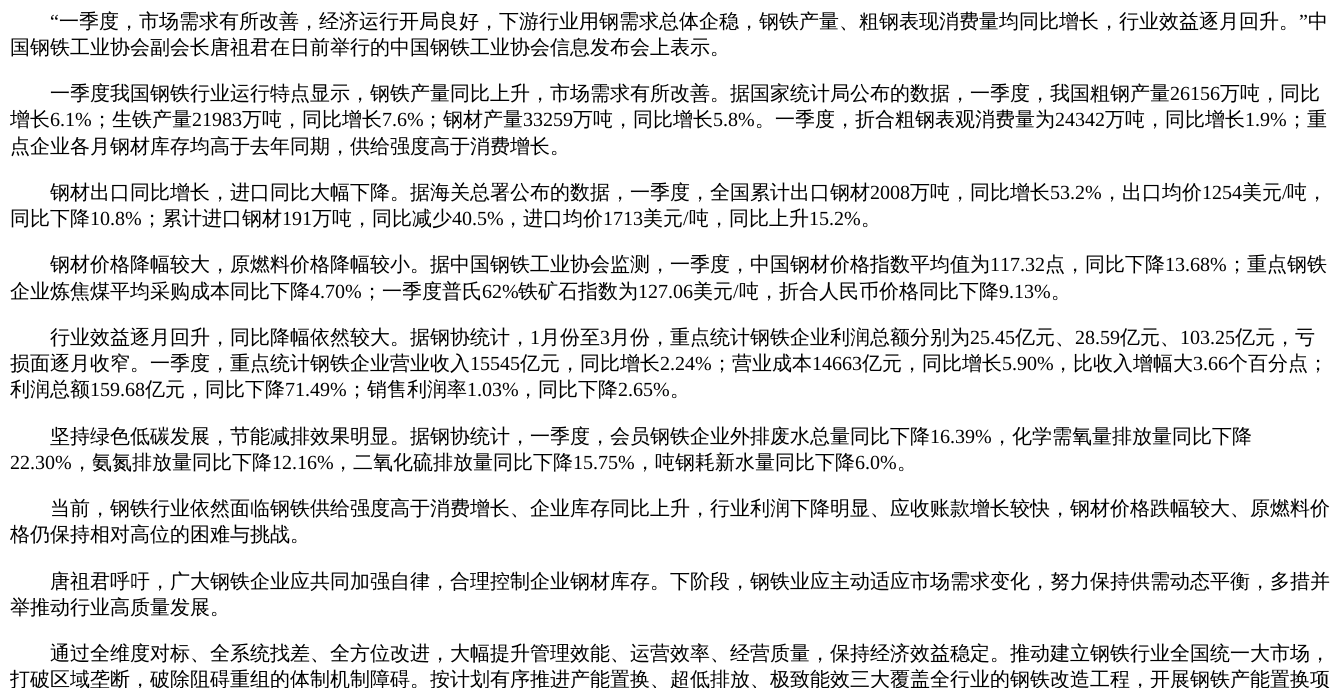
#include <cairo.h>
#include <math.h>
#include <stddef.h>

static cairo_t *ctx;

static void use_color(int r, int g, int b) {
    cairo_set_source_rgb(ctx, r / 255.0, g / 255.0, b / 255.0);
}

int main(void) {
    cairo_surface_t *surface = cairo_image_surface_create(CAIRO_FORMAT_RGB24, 1340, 688);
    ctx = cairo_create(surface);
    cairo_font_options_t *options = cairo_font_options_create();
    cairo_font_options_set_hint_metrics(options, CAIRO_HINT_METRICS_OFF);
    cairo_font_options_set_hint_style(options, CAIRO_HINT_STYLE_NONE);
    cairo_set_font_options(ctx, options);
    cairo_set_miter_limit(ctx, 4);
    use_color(255, 255, 255);
    cairo_paint(ctx);
    cairo_select_font_face(ctx, "Liberation Serif", CAIRO_FONT_SLANT_NORMAL, CAIRO_FONT_WEIGHT_NORMAL);
    cairo_set_font_size(ctx, 20);
    use_color(0, 0, 0);
    cairo_move_to(ctx, 50, 28);
    cairo_show_text(ctx, "“");
    cairo_select_font_face(ctx, "WenQuanYi Zen Hei Medium", CAIRO_FONT_SLANT_NORMAL, CAIRO_FONT_WEIGHT_NORMAL);
    cairo_move_to(ctx, 59, 28);
    cairo_show_text(ctx, "一季度，市场需求有所改善，经济运行开局良好，下游行业用钢需求总体企稳，钢铁产量、粗钢表现消费量均同比增长，行业效益逐月回升。");
    cairo_select_font_face(ctx, "Liberation Serif", CAIRO_FONT_SLANT_NORMAL, CAIRO_FONT_WEIGHT_NORMAL);
    cairo_move_to(ctx, 1299, 28);
    cairo_show_text(ctx, "”");
    cairo_select_font_face(ctx, "WenQuanYi Zen Hei Medium", CAIRO_FONT_SLANT_NORMAL, CAIRO_FONT_WEIGHT_NORMAL);
    cairo_move_to(ctx, 1308, 28);
    cairo_show_text(ctx, "中");
    cairo_move_to(ctx, 10, 54);
    cairo_show_text(ctx, "国钢铁工业协会副会长唐祖君在日前举行的中国钢铁工业协会信息发布会上表示。");
    cairo_move_to(ctx, 50, 100);
    cairo_show_text(ctx, "一季度我国钢铁行业运行特点显示，钢铁产量同比上升，市场需求有所改善。据国家统计局公布的数据，一季度，我国粗钢产量");
    cairo_select_font_face(ctx, "Liberation Serif", CAIRO_FONT_SLANT_NORMAL, CAIRO_FONT_WEIGHT_NORMAL);
    cairo_move_to(ctx, 1170, 100);
    cairo_show_text(ctx, "26156");
    cairo_select_font_face(ctx, "WenQuanYi Zen Hei Medium", CAIRO_FONT_SLANT_NORMAL, CAIRO_FONT_WEIGHT_NORMAL);
    cairo_move_to(ctx, 1220, 100);
    cairo_show_text(ctx, "万吨，同比");
    cairo_move_to(ctx, 10, 126);
    cairo_show_text(ctx, "增长");
    cairo_select_font_face(ctx, "Liberation Serif", CAIRO_FONT_SLANT_NORMAL, CAIRO_FONT_WEIGHT_NORMAL);
    cairo_move_to(ctx, 50, 126);
    cairo_show_text(ctx, "6.1%");
    cairo_select_font_face(ctx, "WenQuanYi Zen Hei Medium", CAIRO_FONT_SLANT_NORMAL, CAIRO_FONT_WEIGHT_NORMAL);
    cairo_move_to(ctx, 92, 126);
    cairo_show_text(ctx, "；生铁产量");
    cairo_select_font_face(ctx, "Liberation Serif", CAIRO_FONT_SLANT_NORMAL, CAIRO_FONT_WEIGHT_NORMAL);
    cairo_move_to(ctx, 192, 126);
    cairo_show_text(ctx, "21983");
    cairo_select_font_face(ctx, "WenQuanYi Zen Hei Medium", CAIRO_FONT_SLANT_NORMAL, CAIRO_FONT_WEIGHT_NORMAL);
    cairo_move_to(ctx, 242, 126);
    cairo_show_text(ctx, "万吨，同比增长");
    cairo_select_font_face(ctx, "Liberation Serif", CAIRO_FONT_SLANT_NORMAL, CAIRO_FONT_WEIGHT_NORMAL);
    cairo_move_to(ctx, 382, 126);
    cairo_show_text(ctx, "7.6%");
    cairo_select_font_face(ctx, "WenQuanYi Zen Hei Medium", CAIRO_FONT_SLANT_NORMAL, CAIRO_FONT_WEIGHT_NORMAL);
    cairo_move_to(ctx, 423, 126);
    cairo_show_text(ctx, "；钢材产量");
    cairo_select_font_face(ctx, "Liberation Serif", CAIRO_FONT_SLANT_NORMAL, CAIRO_FONT_WEIGHT_NORMAL);
    cairo_move_to(ctx, 523, 126);
    cairo_show_text(ctx, "33259");
    cairo_select_font_face(ctx, "WenQuanYi Zen Hei Medium", CAIRO_FONT_SLANT_NORMAL, CAIRO_FONT_WEIGHT_NORMAL);
    cairo_move_to(ctx, 573, 126);
    cairo_show_text(ctx, "万吨，同比增长");
    cairo_select_font_face(ctx, "Liberation Serif", CAIRO_FONT_SLANT_NORMAL, CAIRO_FONT_WEIGHT_NORMAL);
    cairo_move_to(ctx, 713, 126);
    cairo_show_text(ctx, "5.8%");
    cairo_select_font_face(ctx, "WenQuanYi Zen Hei Medium", CAIRO_FONT_SLANT_NORMAL, CAIRO_FONT_WEIGHT_NORMAL);
    cairo_move_to(ctx, 755, 126);
    cairo_show_text(ctx, "。一季度，折合粗钢表观消费量为");
    cairo_select_font_face(ctx, "Liberation Serif", CAIRO_FONT_SLANT_NORMAL, CAIRO_FONT_WEIGHT_NORMAL);
    cairo_move_to(ctx, 1055, 126);
    cairo_show_text(ctx, "24342");
    cairo_select_font_face(ctx, "WenQuanYi Zen Hei Medium", CAIRO_FONT_SLANT_NORMAL, CAIRO_FONT_WEIGHT_NORMAL);
    cairo_move_to(ctx, 1105, 126);
    cairo_show_text(ctx, "万吨，同比增长");
    cairo_select_font_face(ctx, "Liberation Serif", CAIRO_FONT_SLANT_NORMAL, CAIRO_FONT_WEIGHT_NORMAL);
    cairo_move_to(ctx, 1245, 126);
    cairo_show_text(ctx, "1.9%");
    cairo_select_font_face(ctx, "WenQuanYi Zen Hei Medium", CAIRO_FONT_SLANT_NORMAL, CAIRO_FONT_WEIGHT_NORMAL);
    cairo_move_to(ctx, 1287, 126);
    cairo_show_text(ctx, "；重");
    cairo_move_to(ctx, 10, 153);
    cairo_show_text(ctx, "点企业各月钢材库存均高于去年同期，供给强度高于消费增长。");
    cairo_move_to(ctx, 50, 199);
    cairo_show_text(ctx, "钢材出口同比增长，进口同比大幅下降。据海关总署公布的数据，一季度，全国累计出口钢材");
    cairo_select_font_face(ctx, "Liberation Serif", CAIRO_FONT_SLANT_NORMAL, CAIRO_FONT_WEIGHT_NORMAL);
    cairo_move_to(ctx, 870, 199);
    cairo_show_text(ctx, "2008");
    cairo_select_font_face(ctx, "WenQuanYi Zen Hei Medium", CAIRO_FONT_SLANT_NORMAL, CAIRO_FONT_WEIGHT_NORMAL);
    cairo_move_to(ctx, 910, 199);
    cairo_show_text(ctx, "万吨，同比增长");
    cairo_select_font_face(ctx, "Liberation Serif", CAIRO_FONT_SLANT_NORMAL, CAIRO_FONT_WEIGHT_NORMAL);
    cairo_move_to(ctx, 1050, 199);
    cairo_show_text(ctx, "53.2%");
    cairo_select_font_face(ctx, "WenQuanYi Zen Hei Medium", CAIRO_FONT_SLANT_NORMAL, CAIRO_FONT_WEIGHT_NORMAL);
    cairo_move_to(ctx, 1102, 199);
    cairo_show_text(ctx, "，出口均价");
    cairo_select_font_face(ctx, "Liberation Serif", CAIRO_FONT_SLANT_NORMAL, CAIRO_FONT_WEIGHT_NORMAL);
    cairo_move_to(ctx, 1202, 199);
    cairo_show_text(ctx, "1254");
    cairo_select_font_face(ctx, "WenQuanYi Zen Hei Medium", CAIRO_FONT_SLANT_NORMAL, CAIRO_FONT_WEIGHT_NORMAL);
    cairo_move_to(ctx, 1242, 199);
    cairo_show_text(ctx, "美元");
    cairo_select_font_face(ctx, "Liberation Serif", CAIRO_FONT_SLANT_NORMAL, CAIRO_FONT_WEIGHT_NORMAL);
    cairo_move_to(ctx, 1282, 199);
    cairo_show_text(ctx, "/");
    cairo_select_font_face(ctx, "WenQuanYi Zen Hei Medium", CAIRO_FONT_SLANT_NORMAL, CAIRO_FONT_WEIGHT_NORMAL);
    cairo_move_to(ctx, 1287, 199);
    cairo_show_text(ctx, "吨，");
    cairo_move_to(ctx, 10, 225);
    cairo_show_text(ctx, "同比下降");
    cairo_select_font_face(ctx, "Liberation Serif", CAIRO_FONT_SLANT_NORMAL, CAIRO_FONT_WEIGHT_NORMAL);
    cairo_move_to(ctx, 90, 225);
    cairo_show_text(ctx, "10.8%");
    cairo_select_font_face(ctx, "WenQuanYi Zen Hei Medium", CAIRO_FONT_SLANT_NORMAL, CAIRO_FONT_WEIGHT_NORMAL);
    cairo_move_to(ctx, 142, 225);
    cairo_show_text(ctx, "；累计进口钢材");
    cairo_select_font_face(ctx, "Liberation Serif", CAIRO_FONT_SLANT_NORMAL, CAIRO_FONT_WEIGHT_NORMAL);
    cairo_move_to(ctx, 282, 225);
    cairo_show_text(ctx, "191");
    cairo_select_font_face(ctx, "WenQuanYi Zen Hei Medium", CAIRO_FONT_SLANT_NORMAL, CAIRO_FONT_WEIGHT_NORMAL);
    cairo_move_to(ctx, 312, 225);
    cairo_show_text(ctx, "万吨，同比减少");
    cairo_select_font_face(ctx, "Liberation Serif", CAIRO_FONT_SLANT_NORMAL, CAIRO_FONT_WEIGHT_NORMAL);
    cairo_move_to(ctx, 452, 225);
    cairo_show_text(ctx, "40.5%");
    cairo_select_font_face(ctx, "WenQuanYi Zen Hei Medium", CAIRO_FONT_SLANT_NORMAL, CAIRO_FONT_WEIGHT_NORMAL);
    cairo_move_to(ctx, 503, 225);
    cairo_show_text(ctx, "，进口均价");
    cairo_select_font_face(ctx, "Liberation Serif", CAIRO_FONT_SLANT_NORMAL, CAIRO_FONT_WEIGHT_NORMAL);
    cairo_move_to(ctx, 603, 225);
    cairo_show_text(ctx, "1713");
    cairo_select_font_face(ctx, "WenQuanYi Zen Hei Medium", CAIRO_FONT_SLANT_NORMAL, CAIRO_FONT_WEIGHT_NORMAL);
    cairo_move_to(ctx, 643, 225);
    cairo_show_text(ctx, "美元");
    cairo_select_font_face(ctx, "Liberation Serif", CAIRO_FONT_SLANT_NORMAL, CAIRO_FONT_WEIGHT_NORMAL);
    cairo_move_to(ctx, 683, 225);
    cairo_show_text(ctx, "/");
    cairo_select_font_face(ctx, "WenQuanYi Zen Hei Medium", CAIRO_FONT_SLANT_NORMAL, CAIRO_FONT_WEIGHT_NORMAL);
    cairo_move_to(ctx, 689, 225);
    cairo_show_text(ctx, "吨，同比上升");
    cairo_select_font_face(ctx, "Liberation Serif", CAIRO_FONT_SLANT_NORMAL, CAIRO_FONT_WEIGHT_NORMAL);
    cairo_move_to(ctx, 809, 225);
    cairo_show_text(ctx, "15.2%");
    cairo_select_font_face(ctx, "WenQuanYi Zen Hei Medium", CAIRO_FONT_SLANT_NORMAL, CAIRO_FONT_WEIGHT_NORMAL);
    cairo_move_to(ctx, 861, 225);
    cairo_show_text(ctx, "。");
    cairo_move_to(ctx, 50, 271);
    cairo_show_text(ctx, "钢材价格降幅较大，原燃料价格降幅较小。据中国钢铁工业协会监测，一季度，中国钢材价格指数平均值为");
    cairo_select_font_face(ctx, "Liberation Serif", CAIRO_FONT_SLANT_NORMAL, CAIRO_FONT_WEIGHT_NORMAL);
    cairo_move_to(ctx, 990, 271);
    cairo_show_text(ctx, "117.32");
    cairo_select_font_face(ctx, "WenQuanYi Zen Hei Medium", CAIRO_FONT_SLANT_NORMAL, CAIRO_FONT_WEIGHT_NORMAL);
    cairo_move_to(ctx, 1045, 271);
    cairo_show_text(ctx, "点，同比下降");
    cairo_select_font_face(ctx, "Liberation Serif", CAIRO_FONT_SLANT_NORMAL, CAIRO_FONT_WEIGHT_NORMAL);
    cairo_move_to(ctx, 1165, 271);
    cairo_show_text(ctx, "13.68%");
    cairo_select_font_face(ctx, "WenQuanYi Zen Hei Medium", CAIRO_FONT_SLANT_NORMAL, CAIRO_FONT_WEIGHT_NORMAL);
    cairo_move_to(ctx, 1227, 271);
    cairo_show_text(ctx, "；重点钢铁");
    cairo_move_to(ctx, 10, 298);
    cairo_show_text(ctx, "企业炼焦煤平均采购成本同比下降");
    cairo_select_font_face(ctx, "Liberation Serif", CAIRO_FONT_SLANT_NORMAL, CAIRO_FONT_WEIGHT_NORMAL);
    cairo_move_to(ctx, 310, 298);
    cairo_show_text(ctx, "4.70%");
    cairo_select_font_face(ctx, "WenQuanYi Zen Hei Medium", CAIRO_FONT_SLANT_NORMAL, CAIRO_FONT_WEIGHT_NORMAL);
    cairo_move_to(ctx, 362, 298);
    cairo_show_text(ctx, "；一季度普氏");
    cairo_select_font_face(ctx, "Liberation Serif", CAIRO_FONT_SLANT_NORMAL, CAIRO_FONT_WEIGHT_NORMAL);
    cairo_move_to(ctx, 482, 298);
    cairo_show_text(ctx, "62%");
    cairo_select_font_face(ctx, "WenQuanYi Zen Hei Medium", CAIRO_FONT_SLANT_NORMAL, CAIRO_FONT_WEIGHT_NORMAL);
    cairo_move_to(ctx, 518, 298);
    cairo_show_text(ctx, "铁矿石指数为");
    cairo_select_font_face(ctx, "Liberation Serif", CAIRO_FONT_SLANT_NORMAL, CAIRO_FONT_WEIGHT_NORMAL);
    cairo_move_to(ctx, 638, 298);
    cairo_show_text(ctx, "127.06");
    cairo_select_font_face(ctx, "WenQuanYi Zen Hei Medium", CAIRO_FONT_SLANT_NORMAL, CAIRO_FONT_WEIGHT_NORMAL);
    cairo_move_to(ctx, 693, 298);
    cairo_show_text(ctx, "美元");
    cairo_select_font_face(ctx, "Liberation Serif", CAIRO_FONT_SLANT_NORMAL, CAIRO_FONT_WEIGHT_NORMAL);
    cairo_move_to(ctx, 733, 298);
    cairo_show_text(ctx, "/");
    cairo_select_font_face(ctx, "WenQuanYi Zen Hei Medium", CAIRO_FONT_SLANT_NORMAL, CAIRO_FONT_WEIGHT_NORMAL);
    cairo_move_to(ctx, 739, 298);
    cairo_show_text(ctx, "吨，折合人民币价格同比下降");
    cairo_select_font_face(ctx, "Liberation Serif", CAIRO_FONT_SLANT_NORMAL, CAIRO_FONT_WEIGHT_NORMAL);
    cairo_move_to(ctx, 999, 298);
    cairo_show_text(ctx, "9.13%");
    cairo_select_font_face(ctx, "WenQuanYi Zen Hei Medium", CAIRO_FONT_SLANT_NORMAL, CAIRO_FONT_WEIGHT_NORMAL);
    cairo_move_to(ctx, 1051, 298);
    cairo_show_text(ctx, "。");
    cairo_move_to(ctx, 50, 344);
    cairo_show_text(ctx, "行业效益逐月回升，同比降幅依然较大。据钢协统计，");
    cairo_select_font_face(ctx, "Liberation Serif", CAIRO_FONT_SLANT_NORMAL, CAIRO_FONT_WEIGHT_NORMAL);
    cairo_move_to(ctx, 530, 344);
    cairo_show_text(ctx, "1");
    cairo_select_font_face(ctx, "WenQuanYi Zen Hei Medium", CAIRO_FONT_SLANT_NORMAL, CAIRO_FONT_WEIGHT_NORMAL);
    cairo_move_to(ctx, 540, 344);
    cairo_show_text(ctx, "月份至");
    cairo_select_font_face(ctx, "Liberation Serif", CAIRO_FONT_SLANT_NORMAL, CAIRO_FONT_WEIGHT_NORMAL);
    cairo_move_to(ctx, 600, 344);
    cairo_show_text(ctx, "3");
    cairo_select_font_face(ctx, "WenQuanYi Zen Hei Medium", CAIRO_FONT_SLANT_NORMAL, CAIRO_FONT_WEIGHT_NORMAL);
    cairo_move_to(ctx, 610, 344);
    cairo_show_text(ctx, "月份，重点统计钢铁企业利润总额分别为");
    cairo_select_font_face(ctx, "Liberation Serif", CAIRO_FONT_SLANT_NORMAL, CAIRO_FONT_WEIGHT_NORMAL);
    cairo_move_to(ctx, 970, 344);
    cairo_show_text(ctx, "25.45");
    cairo_select_font_face(ctx, "WenQuanYi Zen Hei Medium", CAIRO_FONT_SLANT_NORMAL, CAIRO_FONT_WEIGHT_NORMAL);
    cairo_move_to(ctx, 1015, 344);
    cairo_show_text(ctx, "亿元、");
    cairo_select_font_face(ctx, "Liberation Serif", CAIRO_FONT_SLANT_NORMAL, CAIRO_FONT_WEIGHT_NORMAL);
    cairo_move_to(ctx, 1075, 344);
    cairo_show_text(ctx, "28.59");
    cairo_select_font_face(ctx, "WenQuanYi Zen Hei Medium", CAIRO_FONT_SLANT_NORMAL, CAIRO_FONT_WEIGHT_NORMAL);
    cairo_move_to(ctx, 1120, 344);
    cairo_show_text(ctx, "亿元、");
    cairo_select_font_face(ctx, "Liberation Serif", CAIRO_FONT_SLANT_NORMAL, CAIRO_FONT_WEIGHT_NORMAL);
    cairo_move_to(ctx, 1180, 344);
    cairo_show_text(ctx, "103.25");
    cairo_select_font_face(ctx, "WenQuanYi Zen Hei Medium", CAIRO_FONT_SLANT_NORMAL, CAIRO_FONT_WEIGHT_NORMAL);
    cairo_move_to(ctx, 1235, 344);
    cairo_show_text(ctx, "亿元，亏");
    cairo_move_to(ctx, 10, 370);
    cairo_show_text(ctx, "损面逐月收窄。一季度，重点统计钢铁企业营业收入");
    cairo_select_font_face(ctx, "Liberation Serif", CAIRO_FONT_SLANT_NORMAL, CAIRO_FONT_WEIGHT_NORMAL);
    cairo_move_to(ctx, 470, 370);
    cairo_show_text(ctx, "15545");
    cairo_select_font_face(ctx, "WenQuanYi Zen Hei Medium", CAIRO_FONT_SLANT_NORMAL, CAIRO_FONT_WEIGHT_NORMAL);
    cairo_move_to(ctx, 520, 370);
    cairo_show_text(ctx, "亿元，同比增长");
    cairo_select_font_face(ctx, "Liberation Serif", CAIRO_FONT_SLANT_NORMAL, CAIRO_FONT_WEIGHT_NORMAL);
    cairo_move_to(ctx, 660, 370);
    cairo_show_text(ctx, "2.24%");
    cairo_select_font_face(ctx, "WenQuanYi Zen Hei Medium", CAIRO_FONT_SLANT_NORMAL, CAIRO_FONT_WEIGHT_NORMAL);
    cairo_move_to(ctx, 712, 370);
    cairo_show_text(ctx, "；营业成本");
    cairo_select_font_face(ctx, "Liberation Serif", CAIRO_FONT_SLANT_NORMAL, CAIRO_FONT_WEIGHT_NORMAL);
    cairo_move_to(ctx, 812, 370);
    cairo_show_text(ctx, "14663");
    cairo_select_font_face(ctx, "WenQuanYi Zen Hei Medium", CAIRO_FONT_SLANT_NORMAL, CAIRO_FONT_WEIGHT_NORMAL);
    cairo_move_to(ctx, 862, 370);
    cairo_show_text(ctx, "亿元，同比增长");
    cairo_select_font_face(ctx, "Liberation Serif", CAIRO_FONT_SLANT_NORMAL, CAIRO_FONT_WEIGHT_NORMAL);
    cairo_move_to(ctx, 1002, 370);
    cairo_show_text(ctx, "5.90%");
    cairo_select_font_face(ctx, "WenQuanYi Zen Hei Medium", CAIRO_FONT_SLANT_NORMAL, CAIRO_FONT_WEIGHT_NORMAL);
    cairo_move_to(ctx, 1053, 370);
    cairo_show_text(ctx, "，比收入增幅大");
    cairo_select_font_face(ctx, "Liberation Serif", CAIRO_FONT_SLANT_NORMAL, CAIRO_FONT_WEIGHT_NORMAL);
    cairo_move_to(ctx, 1193, 370);
    cairo_show_text(ctx, "3.66");
    cairo_select_font_face(ctx, "WenQuanYi Zen Hei Medium", CAIRO_FONT_SLANT_NORMAL, CAIRO_FONT_WEIGHT_NORMAL);
    cairo_move_to(ctx, 1228, 370);
    cairo_show_text(ctx, "个百分点；");
    cairo_move_to(ctx, 10, 396);
    cairo_show_text(ctx, "利润总额");
    cairo_select_font_face(ctx, "Liberation Serif", CAIRO_FONT_SLANT_NORMAL, CAIRO_FONT_WEIGHT_NORMAL);
    cairo_move_to(ctx, 90, 396);
    cairo_show_text(ctx, "159.68");
    cairo_select_font_face(ctx, "WenQuanYi Zen Hei Medium", CAIRO_FONT_SLANT_NORMAL, CAIRO_FONT_WEIGHT_NORMAL);
    cairo_move_to(ctx, 145, 396);
    cairo_show_text(ctx, "亿元，同比下降");
    cairo_select_font_face(ctx, "Liberation Serif", CAIRO_FONT_SLANT_NORMAL, CAIRO_FONT_WEIGHT_NORMAL);
    cairo_move_to(ctx, 285, 396);
    cairo_show_text(ctx, "71.49%");
    cairo_select_font_face(ctx, "WenQuanYi Zen Hei Medium", CAIRO_FONT_SLANT_NORMAL, CAIRO_FONT_WEIGHT_NORMAL);
    cairo_move_to(ctx, 347, 396);
    cairo_show_text(ctx, "；销售利润率");
    cairo_select_font_face(ctx, "Liberation Serif", CAIRO_FONT_SLANT_NORMAL, CAIRO_FONT_WEIGHT_NORMAL);
    cairo_move_to(ctx, 467, 396);
    cairo_show_text(ctx, "1.03%");
    cairo_select_font_face(ctx, "WenQuanYi Zen Hei Medium", CAIRO_FONT_SLANT_NORMAL, CAIRO_FONT_WEIGHT_NORMAL);
    cairo_move_to(ctx, 518, 396);
    cairo_show_text(ctx, "，同比下降");
    cairo_select_font_face(ctx, "Liberation Serif", CAIRO_FONT_SLANT_NORMAL, CAIRO_FONT_WEIGHT_NORMAL);
    cairo_move_to(ctx, 618, 396);
    cairo_show_text(ctx, "2.65%");
    cairo_select_font_face(ctx, "WenQuanYi Zen Hei Medium", CAIRO_FONT_SLANT_NORMAL, CAIRO_FONT_WEIGHT_NORMAL);
    cairo_move_to(ctx, 670, 396);
    cairo_show_text(ctx, "。");
    cairo_move_to(ctx, 50, 443);
    cairo_show_text(ctx, "坚持绿色低碳发展，节能减排效果明显。据钢协统计，一季度，会员钢铁企业外排废水总量同比下降");
    cairo_select_font_face(ctx, "Liberation Serif", CAIRO_FONT_SLANT_NORMAL, CAIRO_FONT_WEIGHT_NORMAL);
    cairo_move_to(ctx, 930, 443);
    cairo_show_text(ctx, "16.39%");
    cairo_select_font_face(ctx, "WenQuanYi Zen Hei Medium", CAIRO_FONT_SLANT_NORMAL, CAIRO_FONT_WEIGHT_NORMAL);
    cairo_move_to(ctx, 992, 443);
    cairo_show_text(ctx, "，化学需氧量排放量同比下降");
    cairo_select_font_face(ctx, "Liberation Serif", CAIRO_FONT_SLANT_NORMAL, CAIRO_FONT_WEIGHT_NORMAL);
    cairo_move_to(ctx, 10, 469);
    cairo_show_text(ctx, "22.30%");
    cairo_select_font_face(ctx, "WenQuanYi Zen Hei Medium", CAIRO_FONT_SLANT_NORMAL, CAIRO_FONT_WEIGHT_NORMAL);
    cairo_move_to(ctx, 72, 469);
    cairo_show_text(ctx, "，氨氮排放量同比下降");
    cairo_select_font_face(ctx, "Liberation Serif", CAIRO_FONT_SLANT_NORMAL, CAIRO_FONT_WEIGHT_NORMAL);
    cairo_move_to(ctx, 272, 469);
    cairo_show_text(ctx, "12.16%");
    cairo_select_font_face(ctx, "WenQuanYi Zen Hei Medium", CAIRO_FONT_SLANT_NORMAL, CAIRO_FONT_WEIGHT_NORMAL);
    cairo_move_to(ctx, 333, 469);
    cairo_show_text(ctx, "，二氧化硫排放量同比下降");
    cairo_select_font_face(ctx, "Liberation Serif", CAIRO_FONT_SLANT_NORMAL, CAIRO_FONT_WEIGHT_NORMAL);
    cairo_move_to(ctx, 573, 469);
    cairo_show_text(ctx, "15.75%");
    cairo_select_font_face(ctx, "WenQuanYi Zen Hei Medium", CAIRO_FONT_SLANT_NORMAL, CAIRO_FONT_WEIGHT_NORMAL);
    cairo_move_to(ctx, 635, 469);
    cairo_show_text(ctx, "，吨钢耗新水量同比下降");
    cairo_select_font_face(ctx, "Liberation Serif", CAIRO_FONT_SLANT_NORMAL, CAIRO_FONT_WEIGHT_NORMAL);
    cairo_move_to(ctx, 855, 469);
    cairo_show_text(ctx, "6.0%");
    cairo_select_font_face(ctx, "WenQuanYi Zen Hei Medium", CAIRO_FONT_SLANT_NORMAL, CAIRO_FONT_WEIGHT_NORMAL);
    cairo_move_to(ctx, 897, 469);
    cairo_show_text(ctx, "。");
    cairo_move_to(ctx, 50, 515);
    cairo_show_text(ctx, "当前，钢铁行业依然面临钢铁供给强度高于消费增长、企业库存同比上升，行业利润下降明显、应收账款增长较快，钢材价格跌幅较大、原燃料价");
    cairo_move_to(ctx, 10, 541);
    cairo_show_text(ctx, "格仍保持相对高位的困难与挑战。");
    cairo_move_to(ctx, 50, 588);
    cairo_show_text(ctx, "唐祖君呼吁，广大钢铁企业应共同加强自律，合理控制企业钢材库存。下阶段，钢铁业应主动适应市场需求变化，努力保持供需动态平衡，多措并");
    cairo_move_to(ctx, 10, 614);
    cairo_show_text(ctx, "举推动行业高质量发展。");
    cairo_move_to(ctx, 50, 660);
    cairo_show_text(ctx, "通过全维度对标、全系统找差、全方位改进，大幅提升管理效能、运营效率、经营质量，保持经济效益稳定。推动建立钢铁行业全国统一大市场，");
    cairo_move_to(ctx, 10, 686);
    cairo_show_text(ctx, "打破区域垄断，破除阻碍重组的体制机制障碍。按计划有序推进产能置换、超低排放、极致能效三大覆盖全行业的钢铁改造工程，开展钢铁产能置换项");
    cairo_surface_write_to_png(surface, "result.png");
    cairo_font_options_destroy(options);
    cairo_destroy(ctx);
    cairo_surface_destroy(surface);
    return 0;
}
